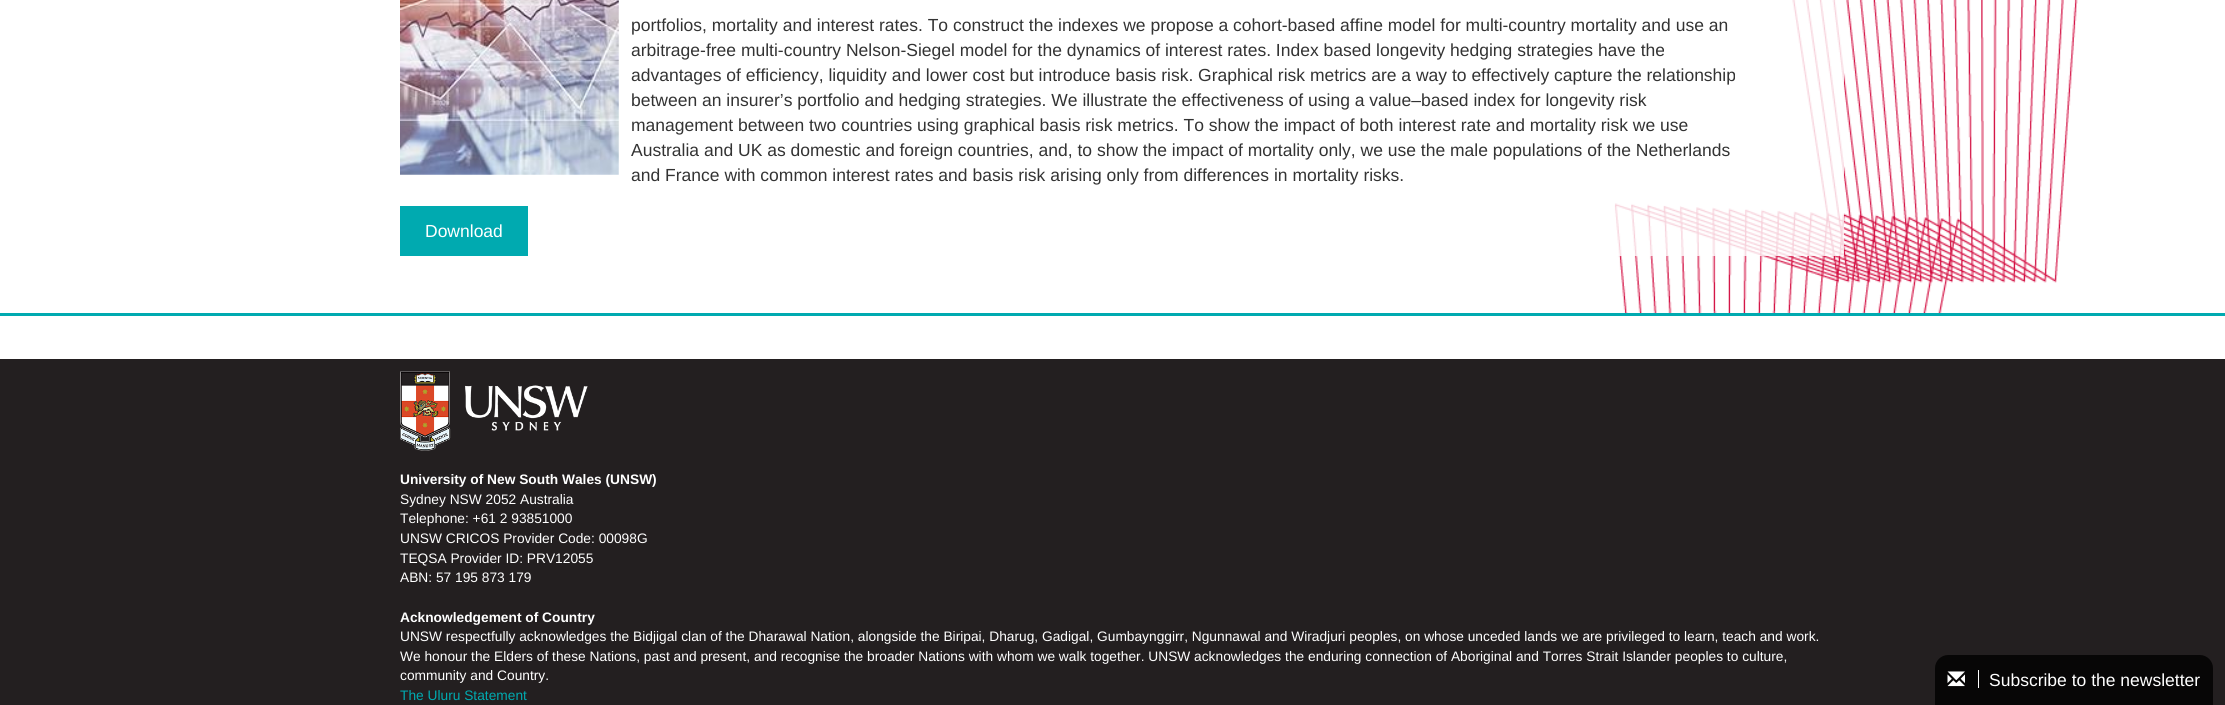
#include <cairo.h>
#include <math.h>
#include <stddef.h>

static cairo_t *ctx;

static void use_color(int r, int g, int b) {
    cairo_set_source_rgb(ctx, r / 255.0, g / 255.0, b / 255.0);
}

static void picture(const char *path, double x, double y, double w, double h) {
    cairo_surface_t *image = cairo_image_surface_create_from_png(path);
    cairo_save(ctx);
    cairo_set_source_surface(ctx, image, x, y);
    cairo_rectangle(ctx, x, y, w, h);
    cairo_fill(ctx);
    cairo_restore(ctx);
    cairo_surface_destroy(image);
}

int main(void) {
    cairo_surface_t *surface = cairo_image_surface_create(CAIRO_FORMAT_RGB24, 2225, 705);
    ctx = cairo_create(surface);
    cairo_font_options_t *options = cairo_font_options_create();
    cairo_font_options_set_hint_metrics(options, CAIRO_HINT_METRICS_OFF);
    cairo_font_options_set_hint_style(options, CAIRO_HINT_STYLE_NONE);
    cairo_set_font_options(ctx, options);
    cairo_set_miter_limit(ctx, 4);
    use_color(255, 255, 255);
    cairo_paint(ctx);
    picture("img1.png", 1614, 0, 464, 313);
    cairo_set_source_rgba(ctx, 1, 1, 1, 0.8);
    cairo_rectangle(ctx, 1614, 0, 230, 256);
    cairo_fill(ctx);
    picture("img2.png", 400, 0, 219, 175);
    cairo_select_font_face(ctx, "Liberation Sans", CAIRO_FONT_SLANT_NORMAL, CAIRO_FONT_WEIGHT_NORMAL);
    cairo_set_font_size(ctx, 17.5);
    use_color(51, 51, 51);
    cairo_move_to(ctx, 631, 31);
    cairo_show_text(ctx, "portfolios, mortality and interest rates. To construct the indexes we propose a cohort-based affine model for multi-country mortality and use an");
    cairo_move_to(ctx, 631, 56);
    cairo_show_text(ctx, "arbitrage-free multi-country Nelson-Siegel model for the dynamics of interest rates. Index based longevity hedging strategies have the");
    cairo_move_to(ctx, 631, 81);
    cairo_show_text(ctx, "advantages of efficiency, liquidity and lower cost but introduce basis risk. Graphical risk metrics are a way to effectively capture the relationship");
    cairo_move_to(ctx, 631, 106);
    cairo_show_text(ctx, "between an insurer’s portfolio and hedging strategies. We illustrate the effectiveness of using a value–based index for longevity risk");
    cairo_move_to(ctx, 631, 131);
    cairo_show_text(ctx, "management between two countries using graphical basis risk metrics. To show the impact of both interest rate and mortality risk we use");
    cairo_move_to(ctx, 631, 156);
    cairo_show_text(ctx, "Australia and UK as domestic and foreign countries, and, to show the impact of mortality only, we use the male populations of the Netherlands");
    cairo_move_to(ctx, 631, 181);
    cairo_show_text(ctx, "and France with common interest rates and basis risk arising only from differences in mortality risks.");
    use_color(0, 170, 176);
    cairo_rectangle(ctx, 400, 206, 128, 50);
    cairo_fill(ctx);
    use_color(255, 255, 255);
    cairo_move_to(ctx, 425, 237);
    cairo_show_text(ctx, "Download");
    use_color(0, 170, 176);
    cairo_rectangle(ctx, 0, 313, 2225, 3);
    cairo_fill(ctx);
    use_color(35, 31, 32);
    cairo_rectangle(ctx, 0, 359, 2225, 346);
    cairo_fill(ctx);
    picture("img3.png", 400, 371, 188, 80);
    cairo_select_font_face(ctx, "Liberation Sans", CAIRO_FONT_SLANT_NORMAL, CAIRO_FONT_WEIGHT_BOLD);
    cairo_set_font_size(ctx, 13.75);
    use_color(255, 255, 255);
    cairo_move_to(ctx, 400, 484);
    cairo_show_text(ctx, "University of New South Wales (UNSW)");
    cairo_select_font_face(ctx, "Liberation Sans", CAIRO_FONT_SLANT_NORMAL, CAIRO_FONT_WEIGHT_NORMAL);
    cairo_move_to(ctx, 400, 504);
    cairo_show_text(ctx, "Sydney NSW 2052 Australia");
    cairo_move_to(ctx, 400, 523);
    cairo_show_text(ctx, "Telephone: +61 2 93851000");
    cairo_move_to(ctx, 400, 543);
    cairo_show_text(ctx, "UNSW CRICOS Provider Code: 00098G");
    cairo_move_to(ctx, 400, 563);
    cairo_show_text(ctx, "TEQSA Provider ID: PRV12055");
    cairo_move_to(ctx, 400, 582);
    cairo_show_text(ctx, "ABN: 57 195 873 179");
    cairo_select_font_face(ctx, "Liberation Sans", CAIRO_FONT_SLANT_NORMAL, CAIRO_FONT_WEIGHT_BOLD);
    cairo_move_to(ctx, 400, 622);
    cairo_show_text(ctx, "Acknowledgement of Country");
    cairo_select_font_face(ctx, "Liberation Sans", CAIRO_FONT_SLANT_NORMAL, CAIRO_FONT_WEIGHT_NORMAL);
    cairo_move_to(ctx, 400, 641);
    cairo_show_text(ctx, "UNSW respectfully acknowledges the Bidjigal clan of the Dharawal Nation, alongside the Biripai, Dharug, Gadigal, Gumbaynggirr, Ngunnawal and Wiradjuri peoples, on whose unceded lands we are privileged to learn, teach and work.");
    cairo_move_to(ctx, 400, 661);
    cairo_show_text(ctx, "We honour the Elders of these Nations, past and present, and recognise the broader Nations with whom we walk together. UNSW acknowledges the enduring connection of Aboriginal and Torres Strait Islander peoples to culture,");
    cairo_move_to(ctx, 400, 680);
    cairo_show_text(ctx, "community and Country.");
    use_color(0, 170, 176);
    cairo_move_to(ctx, 400, 700);
    cairo_show_text(ctx, "The Uluru Statement");
    use_color(7, 6, 6);
    cairo_new_path(ctx);
    cairo_move_to(ctx, 1948, 655);
    cairo_line_to(ctx, 2200, 655);
    cairo_curve_to(ctx, 2207, 655, 2213, 661, 2213, 668);
    cairo_line_to(ctx, 2213, 705);
    cairo_line_to(ctx, 1935, 705);
    cairo_line_to(ctx, 1935, 668);
    cairo_curve_to(ctx, 1935, 661, 1941, 655, 1948, 655);
    cairo_close_path(ctx);
    cairo_fill(ctx);
    use_color(255, 255, 255);
    cairo_rectangle(ctx, 1978, 670, 1, 18);
    cairo_fill(ctx);
    picture("img4.png", 1947, 671, 18, 16);
    cairo_set_font_size(ctx, 17.5);
    cairo_move_to(ctx, 1989, 686);
    cairo_show_text(ctx, "Subscribe to the newsletter");
    cairo_surface_write_to_png(surface, "result.png");
    cairo_font_options_destroy(options);
    cairo_destroy(ctx);
    cairo_surface_destroy(surface);
    return 0;
}
